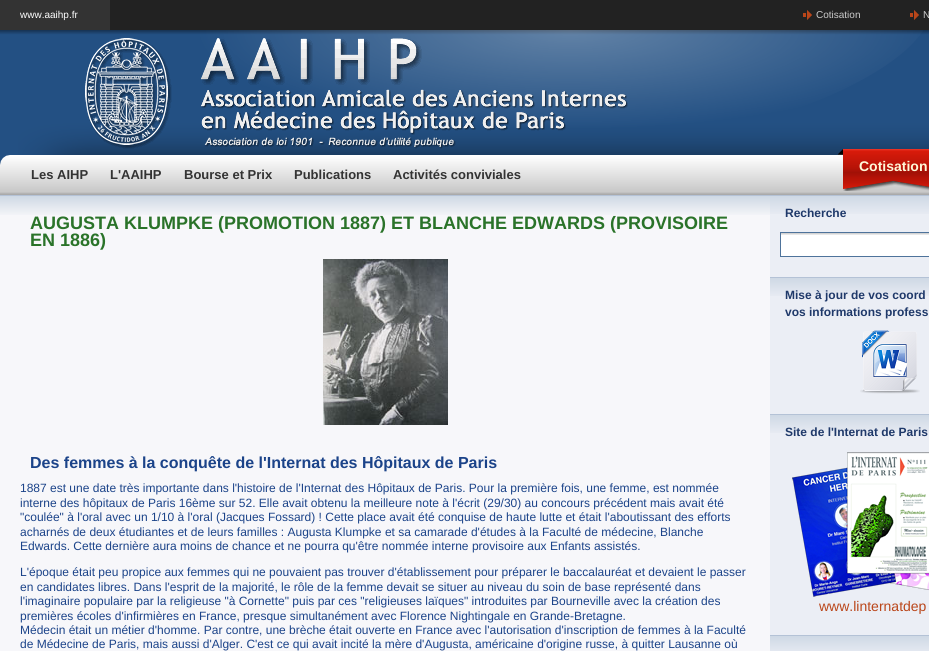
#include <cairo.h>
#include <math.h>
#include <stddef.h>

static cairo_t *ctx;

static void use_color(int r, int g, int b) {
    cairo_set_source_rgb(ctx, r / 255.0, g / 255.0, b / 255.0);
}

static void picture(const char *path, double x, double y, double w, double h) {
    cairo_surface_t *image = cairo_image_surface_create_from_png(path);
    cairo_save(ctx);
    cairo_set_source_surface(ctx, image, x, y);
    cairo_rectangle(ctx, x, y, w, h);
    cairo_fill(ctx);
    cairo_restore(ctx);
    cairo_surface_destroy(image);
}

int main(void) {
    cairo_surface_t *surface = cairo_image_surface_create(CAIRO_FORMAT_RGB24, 929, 651);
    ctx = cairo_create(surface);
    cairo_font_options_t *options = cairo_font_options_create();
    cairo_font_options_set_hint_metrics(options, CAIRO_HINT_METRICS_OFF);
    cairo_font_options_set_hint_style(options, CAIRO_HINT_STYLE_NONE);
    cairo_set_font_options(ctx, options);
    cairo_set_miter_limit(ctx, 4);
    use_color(35, 80, 131);
    cairo_paint(ctx);
    use_color(34, 34, 34);
    cairo_rectangle(ctx, 110, 0, 819, 30);
    cairo_fill(ctx);
    picture("img1.png", 0, 30, 18, 5);
    use_color(51, 51, 51);
    cairo_rectangle(ctx, 0, 0, 110, 30);
    cairo_fill(ctx);
    cairo_select_font_face(ctx, "Liberation Sans", CAIRO_FONT_SLANT_NORMAL, CAIRO_FONT_WEIGHT_NORMAL);
    cairo_set_font_size(ctx, 10);
    use_color(255, 255, 255);
    cairo_move_to(ctx, 20, 18);
    cairo_show_text(ctx, "www.aaihp.fr");
    picture("img2.png", 803, 10, 9, 10);
    use_color(204, 204, 204);
    cairo_move_to(ctx, 816, 18);
    cairo_show_text(ctx, "Cotisation");
    picture("img2.png", 910, 10, 9, 10);
    cairo_move_to(ctx, 923, 18);
    cairo_show_text(ctx, "N");
    picture("img3.png", 18, 30, 911, 125);
    picture("img4.png", 85, 38, 543, 111);
    picture("img5.png", 0, 155, 929, 40);
    picture("img6.png", 838, 149, 91, 42);
    cairo_select_font_face(ctx, "Liberation Sans", CAIRO_FONT_SLANT_NORMAL, CAIRO_FONT_WEIGHT_BOLD);
    cairo_set_font_size(ctx, 14);
    use_color(255, 248, 216);
    cairo_move_to(ctx, 859, 171);
    cairo_show_text(ctx, "Cotisation");
    cairo_set_font_size(ctx, 13);
    use_color(51, 51, 51);
    cairo_move_to(ctx, 31, 179);
    cairo_show_text(ctx, "Les AIHP");
    cairo_move_to(ctx, 110, 179);
    cairo_show_text(ctx, "L'AAIHP");
    cairo_move_to(ctx, 184, 179);
    cairo_show_text(ctx, "Bourse et Prix");
    cairo_move_to(ctx, 294, 179);
    cairo_show_text(ctx, "Publications");
    cairo_move_to(ctx, 393, 179);
    cairo_show_text(ctx, "Activités conviviales");
    use_color(247, 247, 250);
    cairo_rectangle(ctx, 0, 215, 770, 436);
    cairo_fill(ctx);
    picture("img7.png", 0, 195, 770, 20);
    cairo_set_font_size(ctx, 18);
    use_color(42, 115, 41);
    cairo_move_to(ctx, 30, 229);
    cairo_show_text(ctx, "AUGUSTA KLUMPKE (PROMOTION 1887) ET BLANCHE EDWARDS (PROVISOIRE");
    cairo_move_to(ctx, 30, 246);
    cairo_show_text(ctx, "EN 1886)");
    picture("img8.png", 323, 259, 125, 166);
    cairo_set_font_size(ctx, 16);
    use_color(27, 67, 137);
    cairo_move_to(ctx, 30, 468);
    cairo_show_text(ctx, "Des femmes à la conquête de l'Internat des Hôpitaux de Paris");
    cairo_select_font_face(ctx, "Liberation Sans", CAIRO_FONT_SLANT_NORMAL, CAIRO_FONT_WEIGHT_NORMAL);
    cairo_set_font_size(ctx, 12);
    cairo_move_to(ctx, 20, 492);
    cairo_show_text(ctx, "1887 est une date très importante dans l'histoire de l'Internat des Hôpitaux de Paris. Pour la première fois, une femme, est nommée");
    cairo_move_to(ctx, 20, 507);
    cairo_show_text(ctx, "interne des hôpitaux de Paris 16ème sur 52. Elle avait obtenu la meilleure note à l'écrit (29/30) au concours précédent mais avait été");
    cairo_move_to(ctx, 20, 521);
    cairo_show_text(ctx, "\"coulée\" à l'oral avec un 1/10 à l'oral (Jacques Fossard) ! Cette place avait été conquise de haute lutte et était l'aboutissant des efforts");
    cairo_move_to(ctx, 20, 536);
    cairo_show_text(ctx, "acharnés de deux étudiantes et de leurs familles : Augusta Klumpke et sa camarade d'études à la Faculté de médecine, Blanche");
    cairo_move_to(ctx, 20, 550);
    cairo_show_text(ctx, "Edwards. Cette dernière aura moins de chance et ne pourra qu'être nommée interne provisoire aux Enfants assistés.");
    cairo_move_to(ctx, 20, 576);
    cairo_show_text(ctx, "L'époque était peu propice aux femmes qui ne pouvaient pas trouver d'établissement pour préparer le baccalauréat et devaient le passer");
    cairo_move_to(ctx, 20, 591);
    cairo_show_text(ctx, "en candidates libres. Dans l'esprit de la majorité, le rôle de la femme devait se situer au niveau du soin de base représenté dans");
    cairo_move_to(ctx, 20, 605);
    cairo_show_text(ctx, "l'imaginaire populaire par la religieuse \"à Cornette\" puis par ces \"religieuses laïques\" introduites par Bourneville avec la création des");
    cairo_move_to(ctx, 20, 620);
    cairo_show_text(ctx, "premières écoles d'infirmières en France, presque simultanément avec Florence Nightingale en Grande-Bretagne.");
    cairo_move_to(ctx, 20, 634);
    cairo_show_text(ctx, "Médecin était un métier d'homme. Par contre, une brèche était ouverte en France avec l'autorisation d'inscription de femmes à la Faculté");
    cairo_move_to(ctx, 20, 648);
    cairo_show_text(ctx, "de Médecine de Paris, mais aussi d'Alger. C'est ce qui avait incité la mère d'Augusta, américaine d'origine russe, à quitter Lausanne où");
    use_color(235, 238, 245);
    cairo_rectangle(ctx, 770, 214, 159, 421);
    cairo_fill(ctx);
    picture("img9.png", 770, 195, 159, 19);
    cairo_select_font_face(ctx, "Liberation Sans", CAIRO_FONT_SLANT_NORMAL, CAIRO_FONT_WEIGHT_BOLD);
    use_color(31, 57, 106);
    cairo_move_to(ctx, 785, 217);
    cairo_show_text(ctx, "Recherche");
    use_color(255, 255, 255);
    cairo_rectangle(ctx, 781, 235, 148, 21);
    cairo_fill(ctx);
    picture("img10.png", 781, 233, 148, 2);
    cairo_rectangle(ctx, 780.5, 232.5, 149, 24);
    use_color(78, 115, 155);
    cairo_set_line_width(ctx, 1);
    cairo_stroke(ctx);
    picture("img9.png", 770, 277, 159, 19);
    use_color(31, 57, 106);
    cairo_move_to(ctx, 785, 299);
    cairo_show_text(ctx, "Mise à jour de vos coord");
    cairo_move_to(ctx, 785, 316);
    cairo_show_text(ctx, "vos informations profess");
    picture("img11.png", 860, 330, 60, 64);
    picture("img9.png", 770, 414, 159, 19);
    cairo_move_to(ctx, 785, 436);
    cairo_show_text(ctx, "Site de l'Internat de Paris");
    picture("img12.png", 792, 452, 137, 145);
    cairo_select_font_face(ctx, "Liberation Sans", CAIRO_FONT_SLANT_NORMAL, CAIRO_FONT_WEIGHT_NORMAL);
    cairo_set_font_size(ctx, 14);
    use_color(186, 70, 26);
    cairo_move_to(ctx, 819, 611);
    cairo_show_text(ctx, "www.linternatdep");
    picture("img13.png", 770, 635, 159, 16);
    cairo_surface_write_to_png(surface, "result.png");
    cairo_font_options_destroy(options);
    cairo_destroy(ctx);
    cairo_surface_destroy(surface);
    return 0;
}
